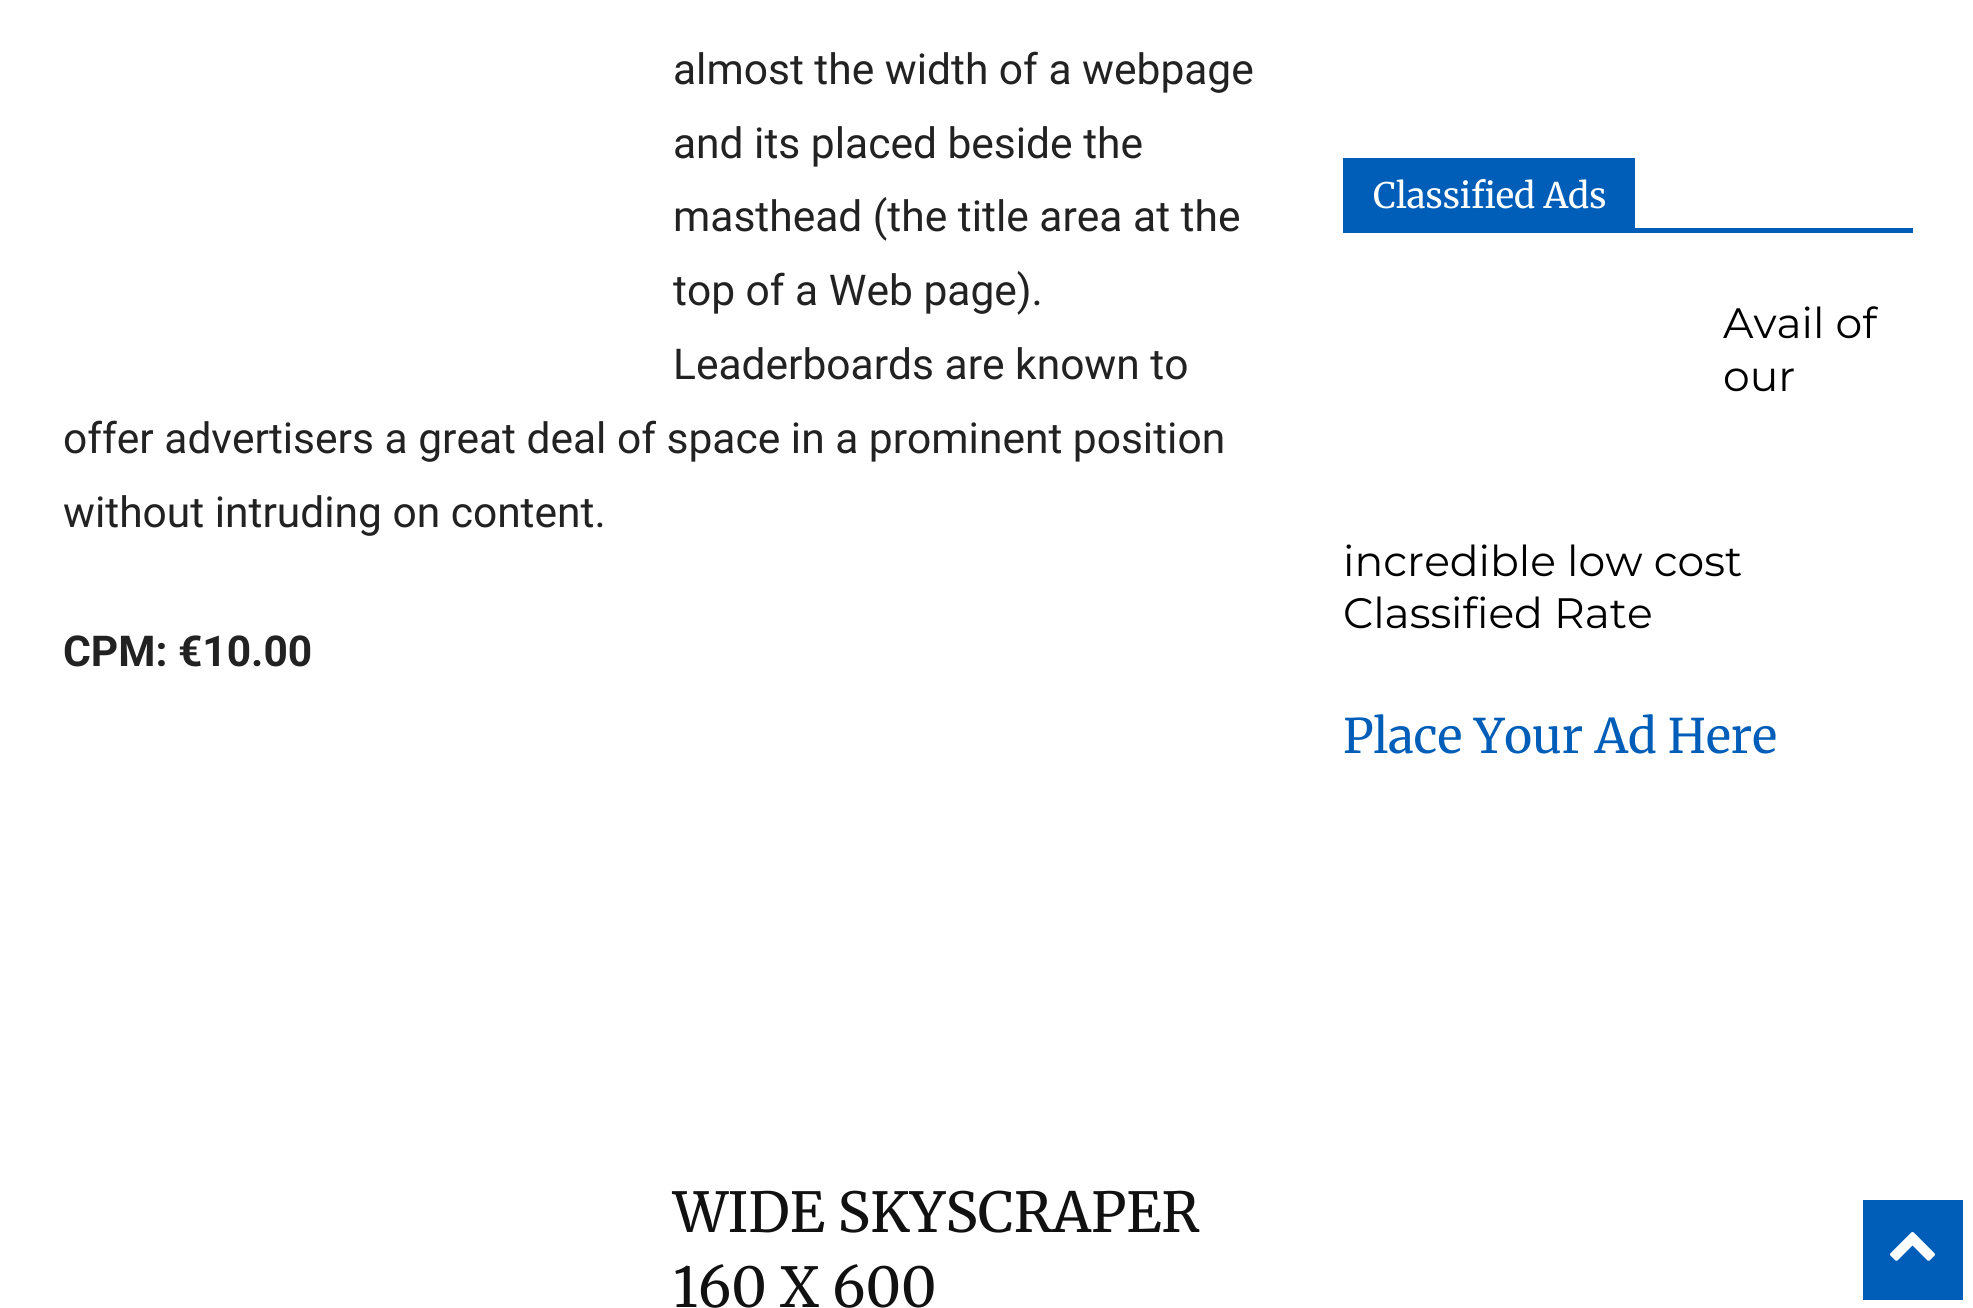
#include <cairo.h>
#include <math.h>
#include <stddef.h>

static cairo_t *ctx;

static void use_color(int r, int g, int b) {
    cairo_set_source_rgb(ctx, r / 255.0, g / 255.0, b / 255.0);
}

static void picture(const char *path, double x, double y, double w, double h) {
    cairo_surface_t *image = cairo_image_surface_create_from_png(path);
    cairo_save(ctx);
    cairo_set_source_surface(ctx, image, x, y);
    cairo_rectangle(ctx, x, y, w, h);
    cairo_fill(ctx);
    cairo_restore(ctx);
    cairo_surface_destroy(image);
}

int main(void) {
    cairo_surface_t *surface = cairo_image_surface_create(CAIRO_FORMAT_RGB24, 1973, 1308);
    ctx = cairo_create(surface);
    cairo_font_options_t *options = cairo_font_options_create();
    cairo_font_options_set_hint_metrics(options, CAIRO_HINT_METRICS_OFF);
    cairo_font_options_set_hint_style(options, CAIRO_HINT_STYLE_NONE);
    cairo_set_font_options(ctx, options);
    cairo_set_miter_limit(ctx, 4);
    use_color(255, 255, 255);
    cairo_paint(ctx);
    cairo_select_font_face(ctx, "Roboto", CAIRO_FONT_SLANT_NORMAL, CAIRO_FONT_WEIGHT_NORMAL);
    cairo_set_font_size(ctx, 42.5);
    use_color(34, 34, 34);
    cairo_move_to(ctx, 673, 84);
    cairo_show_text(ctx, "almost the width of a webpage");
    cairo_move_to(ctx, 673, 158);
    cairo_show_text(ctx, "and its placed beside the");
    cairo_move_to(ctx, 673, 231);
    cairo_show_text(ctx, "masthead (the title area at the");
    cairo_move_to(ctx, 673, 305);
    cairo_show_text(ctx, "top of a Web page).");
    cairo_move_to(ctx, 673, 379);
    cairo_show_text(ctx, "Leaderboards are known to");
    cairo_move_to(ctx, 63, 453);
    cairo_show_text(ctx, "offer advertisers a great deal of space in a prominent position");
    cairo_move_to(ctx, 63, 527);
    cairo_show_text(ctx, "without intruding on content.");
    cairo_select_font_face(ctx, "Roboto", CAIRO_FONT_SLANT_NORMAL, CAIRO_FONT_WEIGHT_BOLD);
    cairo_move_to(ctx, 63, 666);
    cairo_show_text(ctx, "CPM: €10.00");
    cairo_select_font_face(ctx, "Merriweather", CAIRO_FONT_SLANT_NORMAL, CAIRO_FONT_WEIGHT_NORMAL);
    cairo_set_font_size(ctx, 55);
    use_color(17, 17, 17);
    cairo_move_to(ctx, 673, 1232);
    cairo_show_text(ctx, "WIDE SKYSCRAPER");
    cairo_move_to(ctx, 673, 1307);
    cairo_show_text(ctx, "160 X 600");
    use_color(0, 94, 184);
    cairo_rectangle(ctx, 1343, 228, 570, 5);
    cairo_fill(ctx);
    cairo_rectangle(ctx, 1343, 158, 292, 70);
    cairo_fill(ctx);
    cairo_set_font_size(ctx, 35);
    use_color(255, 255, 255);
    cairo_move_to(ctx, 1373, 208);
    cairo_show_text(ctx, "Classified Ads");
    cairo_select_font_face(ctx, "Montserrat", CAIRO_FONT_SLANT_NORMAL, CAIRO_FONT_WEIGHT_NORMAL);
    cairo_set_font_size(ctx, 42.5);
    use_color(0, 0, 0);
    cairo_move_to(ctx, 1723, 338);
    cairo_show_text(ctx, "Avail of");
    cairo_move_to(ctx, 1723, 391);
    cairo_show_text(ctx, "our");
    cairo_move_to(ctx, 1343, 576);
    cairo_show_text(ctx, "incredible low cost");
    cairo_move_to(ctx, 1343, 628);
    cairo_show_text(ctx, "Classified Rate");
    cairo_select_font_face(ctx, "Merriweather", CAIRO_FONT_SLANT_NORMAL, CAIRO_FONT_WEIGHT_NORMAL);
    cairo_set_font_size(ctx, 47.5);
    use_color(0, 94, 184);
    cairo_move_to(ctx, 1343, 753);
    cairo_show_text(ctx, "Place Your Ad Here");
    cairo_rectangle(ctx, 1863, 1200, 100, 100);
    cairo_fill(ctx);
    picture("img1.png", 1890, 1232, 45, 29);
    cairo_surface_write_to_png(surface, "result.png");
    cairo_font_options_destroy(options);
    cairo_destroy(ctx);
    cairo_surface_destroy(surface);
    return 0;
}
